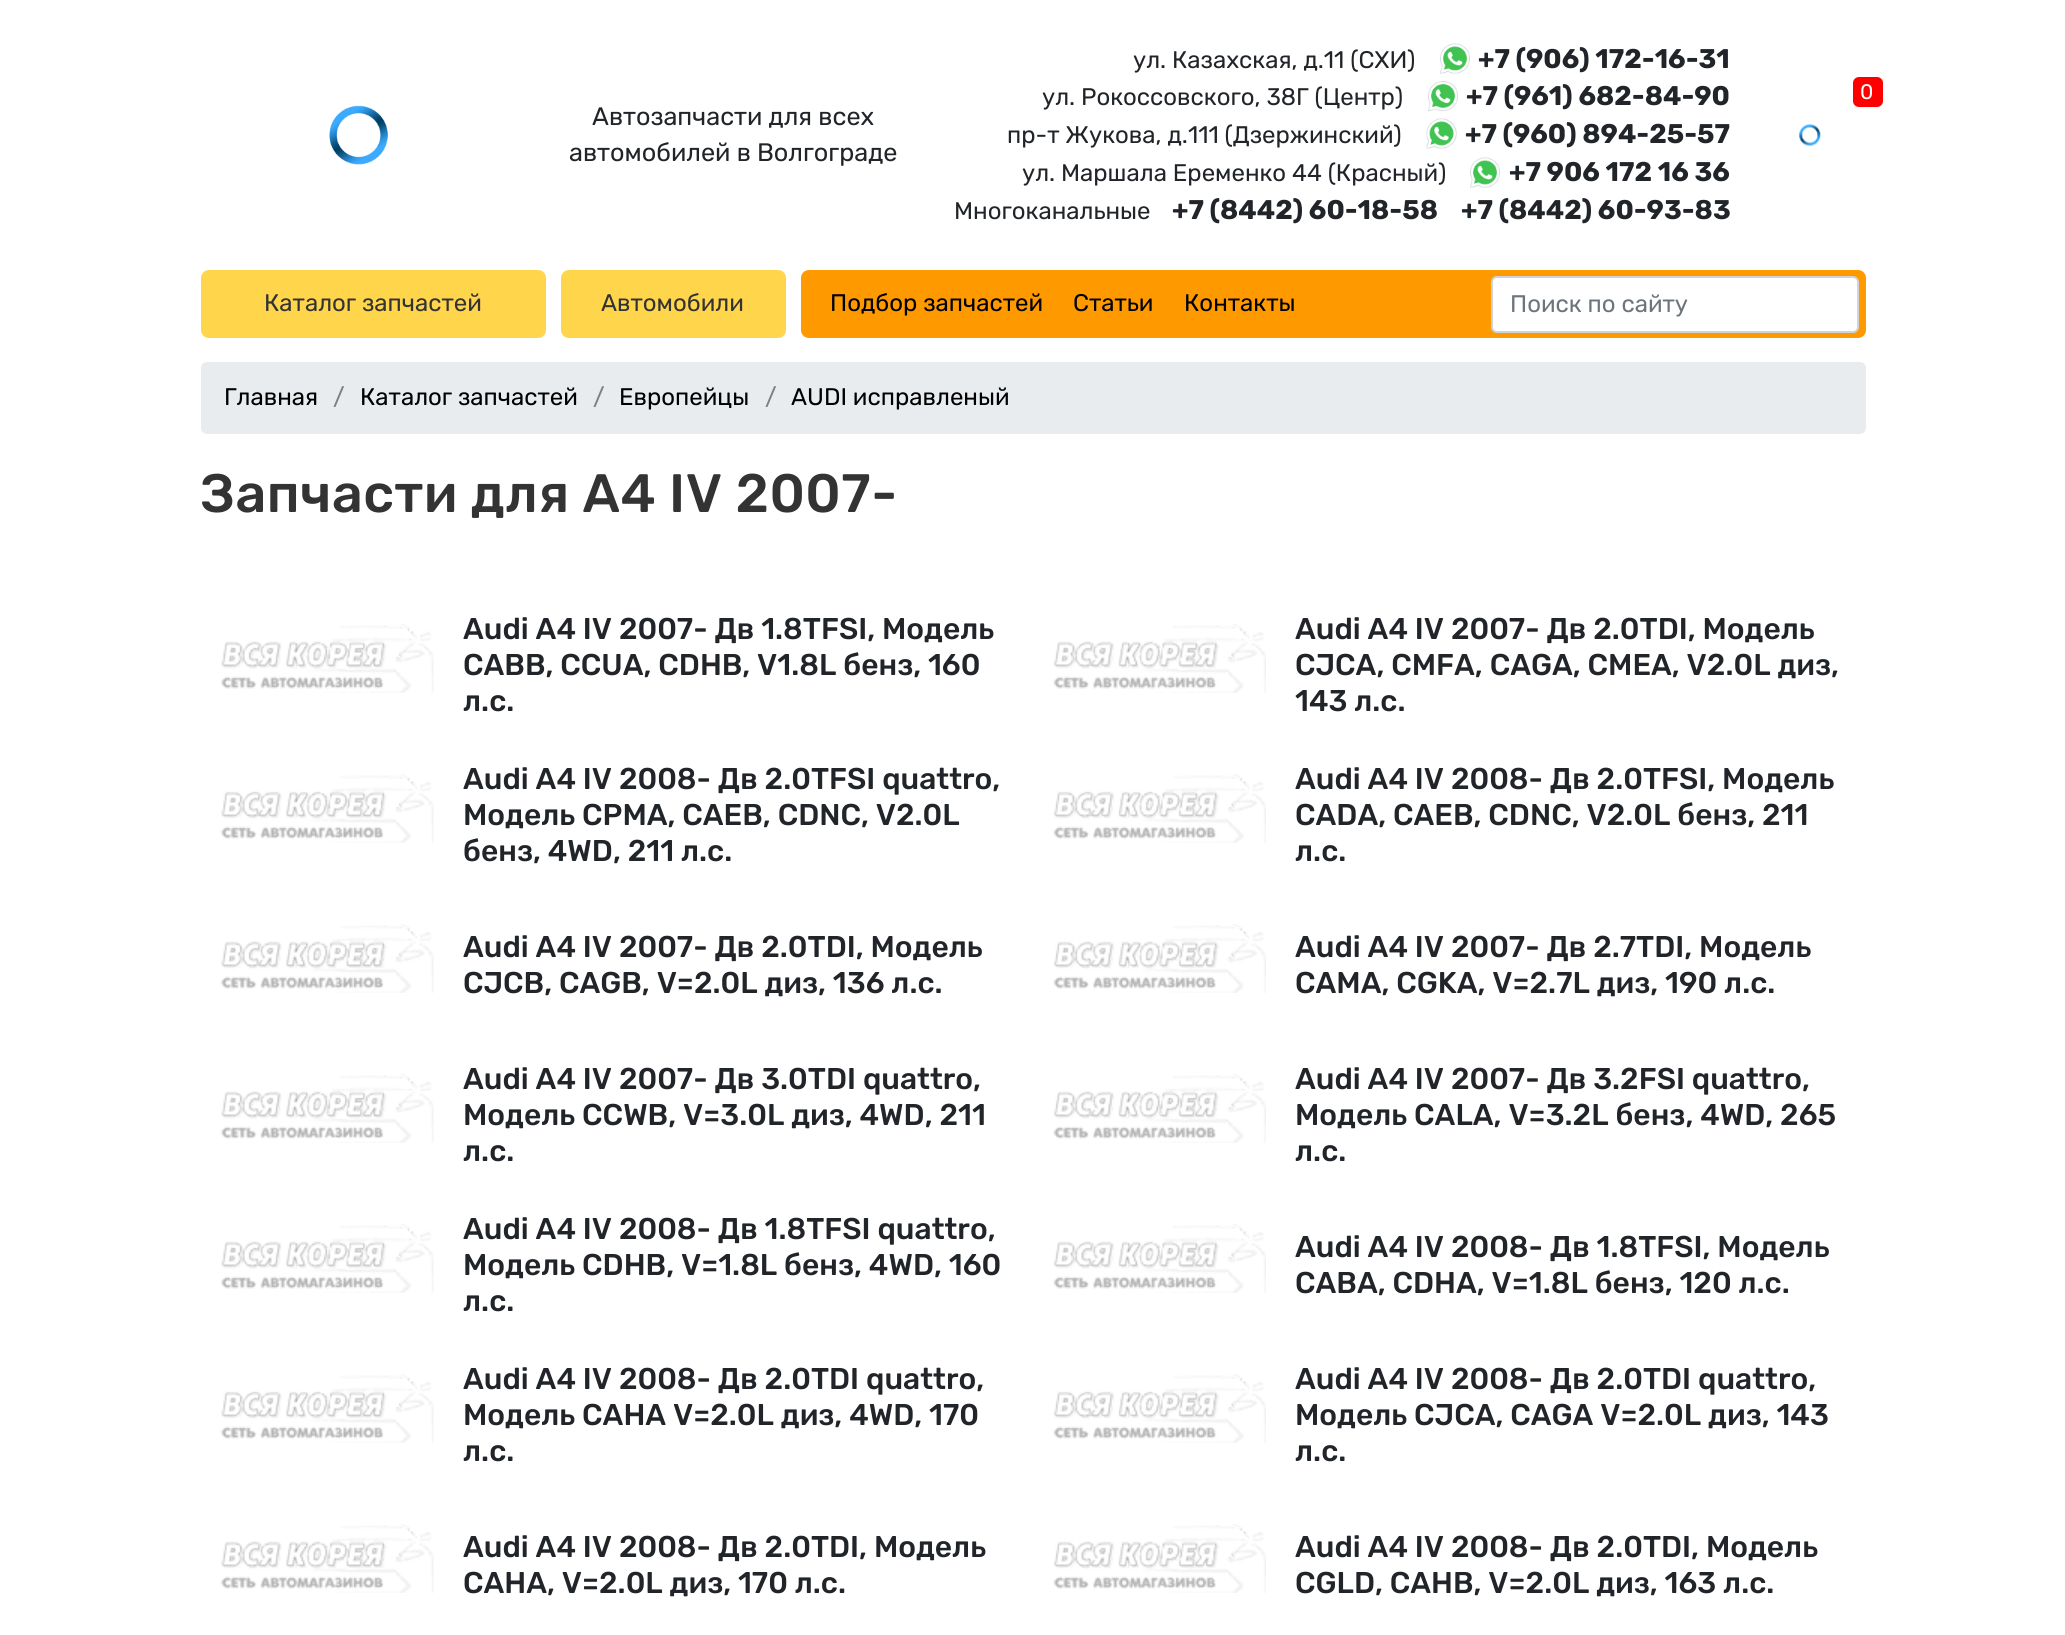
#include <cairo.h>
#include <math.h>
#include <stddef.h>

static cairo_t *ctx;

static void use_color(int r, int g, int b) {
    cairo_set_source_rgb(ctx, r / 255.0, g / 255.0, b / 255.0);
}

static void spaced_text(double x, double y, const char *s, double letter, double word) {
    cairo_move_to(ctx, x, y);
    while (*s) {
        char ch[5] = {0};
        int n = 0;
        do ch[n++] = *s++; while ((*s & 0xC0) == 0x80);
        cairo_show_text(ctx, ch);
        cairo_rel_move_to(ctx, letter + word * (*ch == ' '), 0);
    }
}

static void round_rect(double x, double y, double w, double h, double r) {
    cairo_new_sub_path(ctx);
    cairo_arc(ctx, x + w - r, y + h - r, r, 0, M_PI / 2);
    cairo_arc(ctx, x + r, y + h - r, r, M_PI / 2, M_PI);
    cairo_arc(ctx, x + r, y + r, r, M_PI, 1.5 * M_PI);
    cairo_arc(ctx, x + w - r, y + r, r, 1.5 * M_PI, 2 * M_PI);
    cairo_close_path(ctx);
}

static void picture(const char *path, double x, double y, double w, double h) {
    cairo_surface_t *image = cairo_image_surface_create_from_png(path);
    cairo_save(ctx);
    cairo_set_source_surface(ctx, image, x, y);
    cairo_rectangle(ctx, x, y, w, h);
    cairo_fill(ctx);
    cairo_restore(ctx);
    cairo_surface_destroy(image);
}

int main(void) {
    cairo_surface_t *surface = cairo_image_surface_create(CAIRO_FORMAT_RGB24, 2065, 1635);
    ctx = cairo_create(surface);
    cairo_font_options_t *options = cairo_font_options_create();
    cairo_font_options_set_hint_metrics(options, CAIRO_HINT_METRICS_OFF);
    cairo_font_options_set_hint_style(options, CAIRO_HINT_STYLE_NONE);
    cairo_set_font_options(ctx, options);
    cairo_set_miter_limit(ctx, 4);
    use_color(255, 255, 255);
    cairo_paint(ctx);
    cairo_select_font_face(ctx, "Rubik", CAIRO_FONT_SLANT_NORMAL, CAIRO_FONT_WEIGHT_NORMAL);
    cairo_set_font_size(ctx, 24);
    use_color(33, 37, 41);
    cairo_move_to(ctx, 1133, 68);
    cairo_show_text(ctx, "ул. Казахская, д.11 (CХИ)");
    picture("img1.png", 1440, 43, 30, 31);
    cairo_select_font_face(ctx, "Rubik", CAIRO_FONT_SLANT_NORMAL, CAIRO_FONT_WEIGHT_BOLD);
    cairo_set_font_size(ctx, 27);
    cairo_move_to(ctx, 1478, 68);
    cairo_show_text(ctx, "+7 (906) 172-16-31");
    cairo_select_font_face(ctx, "Rubik", CAIRO_FONT_SLANT_NORMAL, CAIRO_FONT_WEIGHT_NORMAL);
    cairo_set_font_size(ctx, 24);
    cairo_move_to(ctx, 1042, 105);
    cairo_show_text(ctx, "ул. Рокоссовского, 38Г (Центр)");
    picture("img2.png", 1428, 81, 30, 31);
    cairo_select_font_face(ctx, "Rubik", CAIRO_FONT_SLANT_NORMAL, CAIRO_FONT_WEIGHT_BOLD);
    cairo_set_font_size(ctx, 27);
    cairo_move_to(ctx, 1466, 105);
    cairo_show_text(ctx, "+7 (961) 682-84-90");
    cairo_select_font_face(ctx, "Rubik", CAIRO_FONT_SLANT_NORMAL, CAIRO_FONT_WEIGHT_NORMAL);
    cairo_set_font_size(ctx, 24);
    cairo_move_to(ctx, 1007, 143);
    cairo_show_text(ctx, "пр-т Жукова, д.111 (Дзержинский)");
    picture("img3.png", 1426, 118, 31, 31);
    cairo_select_font_face(ctx, "Rubik", CAIRO_FONT_SLANT_NORMAL, CAIRO_FONT_WEIGHT_BOLD);
    cairo_set_font_size(ctx, 27);
    cairo_move_to(ctx, 1465, 143);
    cairo_show_text(ctx, "+7 (960) 894-25-57");
    cairo_select_font_face(ctx, "Rubik", CAIRO_FONT_SLANT_NORMAL, CAIRO_FONT_WEIGHT_NORMAL);
    cairo_set_font_size(ctx, 24);
    cairo_move_to(ctx, 1022, 181);
    cairo_show_text(ctx, "ул. Маршала Еременко 44 (Красный)");
    picture("img4.png", 1470, 157, 30, 31);
    cairo_select_font_face(ctx, "Rubik", CAIRO_FONT_SLANT_NORMAL, CAIRO_FONT_WEIGHT_BOLD);
    cairo_set_font_size(ctx, 27);
    cairo_move_to(ctx, 1509, 181);
    cairo_show_text(ctx, "+7 906 172 16 36");
    cairo_select_font_face(ctx, "Rubik", CAIRO_FONT_SLANT_NORMAL, CAIRO_FONT_WEIGHT_NORMAL);
    cairo_set_font_size(ctx, 24);
    cairo_move_to(ctx, 954, 219);
    cairo_show_text(ctx, "Многоканальные");
    cairo_select_font_face(ctx, "Rubik", CAIRO_FONT_SLANT_NORMAL, CAIRO_FONT_WEIGHT_BOLD);
    cairo_set_font_size(ctx, 27);
    cairo_move_to(ctx, 1172, 219);
    cairo_show_text(ctx, "+7 (8442) 60-18-58");
    cairo_move_to(ctx, 1461, 219);
    cairo_show_text(ctx, "+7 (8442) 60-93-83");
    use_color(255, 0, 0);
    round_rect(1853, 77, 30, 30, 6);
    cairo_fill(ctx);
    cairo_select_font_face(ctx, "Rubik", CAIRO_FONT_SLANT_NORMAL, CAIRO_FONT_WEIGHT_NORMAL);
    cairo_set_font_size(ctx, 21);
    use_color(255, 255, 255);
    cairo_move_to(ctx, 1860, 99);
    cairo_show_text(ctx, "0");
    picture("img5.png", 1799, 124, 22, 22);
    picture("img6.png", 329, 105, 59, 60);
    cairo_set_font_size(ctx, 25.25);
    use_color(33, 37, 41);
    cairo_move_to(ctx, 592, 125);
    cairo_show_text(ctx, "Автозапчасти для всех");
    cairo_move_to(ctx, 569, 161);
    cairo_show_text(ctx, "автомобилей в Волгограде");
    use_color(255, 213, 76);
    round_rect(201, 270, 345, 68, 8);
    cairo_fill(ctx);
    cairo_set_font_size(ctx, 24);
    use_color(51, 51, 51);
    cairo_move_to(ctx, 264, 311);
    cairo_show_text(ctx, "Каталог запчастей");
    use_color(255, 213, 76);
    round_rect(561, 270, 225, 68, 8);
    cairo_fill(ctx);
    use_color(51, 51, 51);
    cairo_move_to(ctx, 601, 311);
    cairo_show_text(ctx, "Автомобили");
    use_color(255, 153, 0);
    round_rect(801, 270, 1065, 68, 8);
    cairo_fill(ctx);
    use_color(0, 0, 0);
    cairo_move_to(ctx, 830, 311);
    cairo_show_text(ctx, "Подбор запчастей");
    cairo_move_to(ctx, 1073, 311);
    cairo_show_text(ctx, "Статьи");
    cairo_move_to(ctx, 1184, 311);
    cairo_show_text(ctx, "Контакты");
    use_color(255, 255, 255);
    round_rect(1492, 277, 366, 55, 5);
    cairo_fill_preserve(ctx);
    use_color(206, 212, 218);
    cairo_stroke(ctx);
    use_color(108, 117, 125);
    cairo_move_to(ctx, 1510, 312);
    cairo_show_text(ctx, "Поиск по сайту");
    use_color(233, 236, 239);
    round_rect(201, 362, 1665, 72, 6);
    cairo_fill(ctx);
    use_color(0, 0, 0);
    cairo_move_to(ctx, 224, 405);
    cairo_show_text(ctx, "Главная");
    use_color(128, 128, 128);
    cairo_move_to(ctx, 333, 405);
    cairo_show_text(ctx, "/");
    use_color(0, 0, 0);
    cairo_move_to(ctx, 360, 405);
    cairo_show_text(ctx, "Каталог запчастей");
    use_color(128, 128, 128);
    cairo_move_to(ctx, 593, 405);
    cairo_show_text(ctx, "/");
    use_color(0, 0, 0);
    cairo_move_to(ctx, 619, 405);
    cairo_show_text(ctx, "Европейцы");
    use_color(128, 128, 128);
    cairo_move_to(ctx, 765, 405);
    cairo_show_text(ctx, "/");
    use_color(0, 0, 0);
    cairo_move_to(ctx, 791, 405);
    cairo_show_text(ctx, "AUDI исправленый");
    cairo_select_font_face(ctx, "Rubik Medium", CAIRO_FONT_SLANT_NORMAL, CAIRO_FONT_WEIGHT_NORMAL);
    cairo_set_font_size(ctx, 54);
    use_color(51, 51, 51);
    spaced_text(200, 512, "Запчасти для A4 IV 2007-", 0.5, 0);
    picture("img7.png", 220, 624, 214, 69);
    cairo_set_font_size(ctx, 30);
    use_color(33, 37, 41);
    cairo_move_to(ctx, 463, 639);
    cairo_show_text(ctx, "Audi A4 IV 2007- Дв 1.8TFSI, Модель");
    cairo_move_to(ctx, 463, 675);
    cairo_show_text(ctx, "CABB, CCUA, CDHB, V1.8L бенз, 160");
    cairo_move_to(ctx, 463, 711);
    cairo_show_text(ctx, "л.с.");
    picture("img8.png", 1053, 624, 213, 69);
    cairo_move_to(ctx, 1295, 639);
    cairo_show_text(ctx, "Audi A4 IV 2007- Дв 2.0TDI, Модель");
    cairo_move_to(ctx, 1295, 675);
    cairo_show_text(ctx, "CJCA, CMFA, CAGA, CMEA, V2.0L диз,");
    cairo_move_to(ctx, 1295, 711);
    cairo_show_text(ctx, "143 л.с.");
    picture("img7.png", 220, 774, 214, 69);
    cairo_move_to(ctx, 463, 789);
    cairo_show_text(ctx, "Audi A4 IV 2008- Дв 2.0TFSI quattro,");
    cairo_move_to(ctx, 463, 825);
    cairo_show_text(ctx, "Модель CPMA, CAEB, CDNC, V2.0L");
    cairo_move_to(ctx, 463, 861);
    cairo_show_text(ctx, "бенз, 4WD, 211 л.с.");
    picture("img8.png", 1053, 774, 213, 69);
    cairo_move_to(ctx, 1295, 789);
    cairo_show_text(ctx, "Audi A4 IV 2008- Дв 2.0TFSI, Модель");
    cairo_move_to(ctx, 1295, 825);
    cairo_show_text(ctx, "CADA, CAEB, CDNC, V2.0L бенз, 211");
    cairo_move_to(ctx, 1295, 861);
    cairo_show_text(ctx, "л.с.");
    picture("img7.png", 220, 924, 214, 69);
    cairo_move_to(ctx, 463, 957);
    cairo_show_text(ctx, "Audi A4 IV 2007- Дв 2.0TDI, Модель");
    cairo_move_to(ctx, 463, 993);
    cairo_show_text(ctx, "CJCB, CAGB, V=2.0L диз, 136 л.с.");
    picture("img8.png", 1053, 924, 213, 69);
    cairo_move_to(ctx, 1295, 957);
    cairo_show_text(ctx, "Audi A4 IV 2007- Дв 2.7TDI, Модель");
    cairo_move_to(ctx, 1295, 993);
    cairo_show_text(ctx, "CAMA, CGKA, V=2.7L диз, 190 л.с.");
    picture("img7.png", 220, 1074, 214, 69);
    cairo_move_to(ctx, 463, 1089);
    cairo_show_text(ctx, "Audi A4 IV 2007- Дв 3.0TDI quattro,");
    cairo_move_to(ctx, 463, 1125);
    cairo_show_text(ctx, "Модель CCWB, V=3.0L диз, 4WD, 211");
    cairo_move_to(ctx, 463, 1161);
    cairo_show_text(ctx, "л.с.");
    picture("img8.png", 1053, 1074, 213, 69);
    cairo_move_to(ctx, 1295, 1089);
    cairo_show_text(ctx, "Audi A4 IV 2007- Дв 3.2FSI quattro,");
    cairo_move_to(ctx, 1295, 1125);
    cairo_show_text(ctx, "Модель CALA, V=3.2L бенз, 4WD, 265");
    cairo_move_to(ctx, 1295, 1161);
    cairo_show_text(ctx, "л.с.");
    picture("img7.png", 220, 1224, 214, 69);
    cairo_move_to(ctx, 463, 1239);
    cairo_show_text(ctx, "Audi A4 IV 2008- Дв 1.8TFSI quattro,");
    cairo_move_to(ctx, 463, 1275);
    cairo_show_text(ctx, "Модель CDHB, V=1.8L бенз, 4WD, 160");
    cairo_move_to(ctx, 463, 1311);
    cairo_show_text(ctx, "л.с.");
    picture("img8.png", 1053, 1224, 213, 69);
    cairo_move_to(ctx, 1295, 1257);
    cairo_show_text(ctx, "Audi A4 IV 2008- Дв 1.8TFSI, Модель");
    cairo_move_to(ctx, 1295, 1293);
    cairo_show_text(ctx, "CABA, CDHA, V=1.8L бенз, 120 л.с.");
    picture("img7.png", 220, 1374, 214, 69);
    cairo_move_to(ctx, 463, 1389);
    cairo_show_text(ctx, "Audi A4 IV 2008- Дв 2.0TDI quattro,");
    cairo_move_to(ctx, 463, 1425);
    cairo_show_text(ctx, "Модель CAHA V=2.0L диз, 4WD, 170");
    cairo_move_to(ctx, 463, 1461);
    cairo_show_text(ctx, "л.с.");
    picture("img8.png", 1053, 1374, 213, 69);
    cairo_move_to(ctx, 1295, 1389);
    cairo_show_text(ctx, "Audi A4 IV 2008- Дв 2.0TDI quattro,");
    cairo_move_to(ctx, 1295, 1425);
    cairo_show_text(ctx, "Модель CJCA, CAGA V=2.0L диз, 143");
    cairo_move_to(ctx, 1295, 1461);
    cairo_show_text(ctx, "л.с.");
    picture("img7.png", 220, 1524, 214, 69);
    cairo_move_to(ctx, 463, 1557);
    cairo_show_text(ctx, "Audi A4 IV 2008- Дв 2.0TDI, Модель");
    cairo_move_to(ctx, 463, 1593);
    cairo_show_text(ctx, "CAHA, V=2.0L диз, 170 л.с.");
    picture("img8.png", 1053, 1524, 213, 69);
    cairo_move_to(ctx, 1295, 1557);
    cairo_show_text(ctx, "Audi A4 IV 2008- Дв 2.0TDI, Модель");
    cairo_move_to(ctx, 1295, 1593);
    cairo_show_text(ctx, "CGLD, CAHB, V=2.0L диз, 163 л.с.");
    cairo_surface_write_to_png(surface, "result.png");
    cairo_font_options_destroy(options);
    cairo_destroy(ctx);
    cairo_surface_destroy(surface);
    return 0;
}
